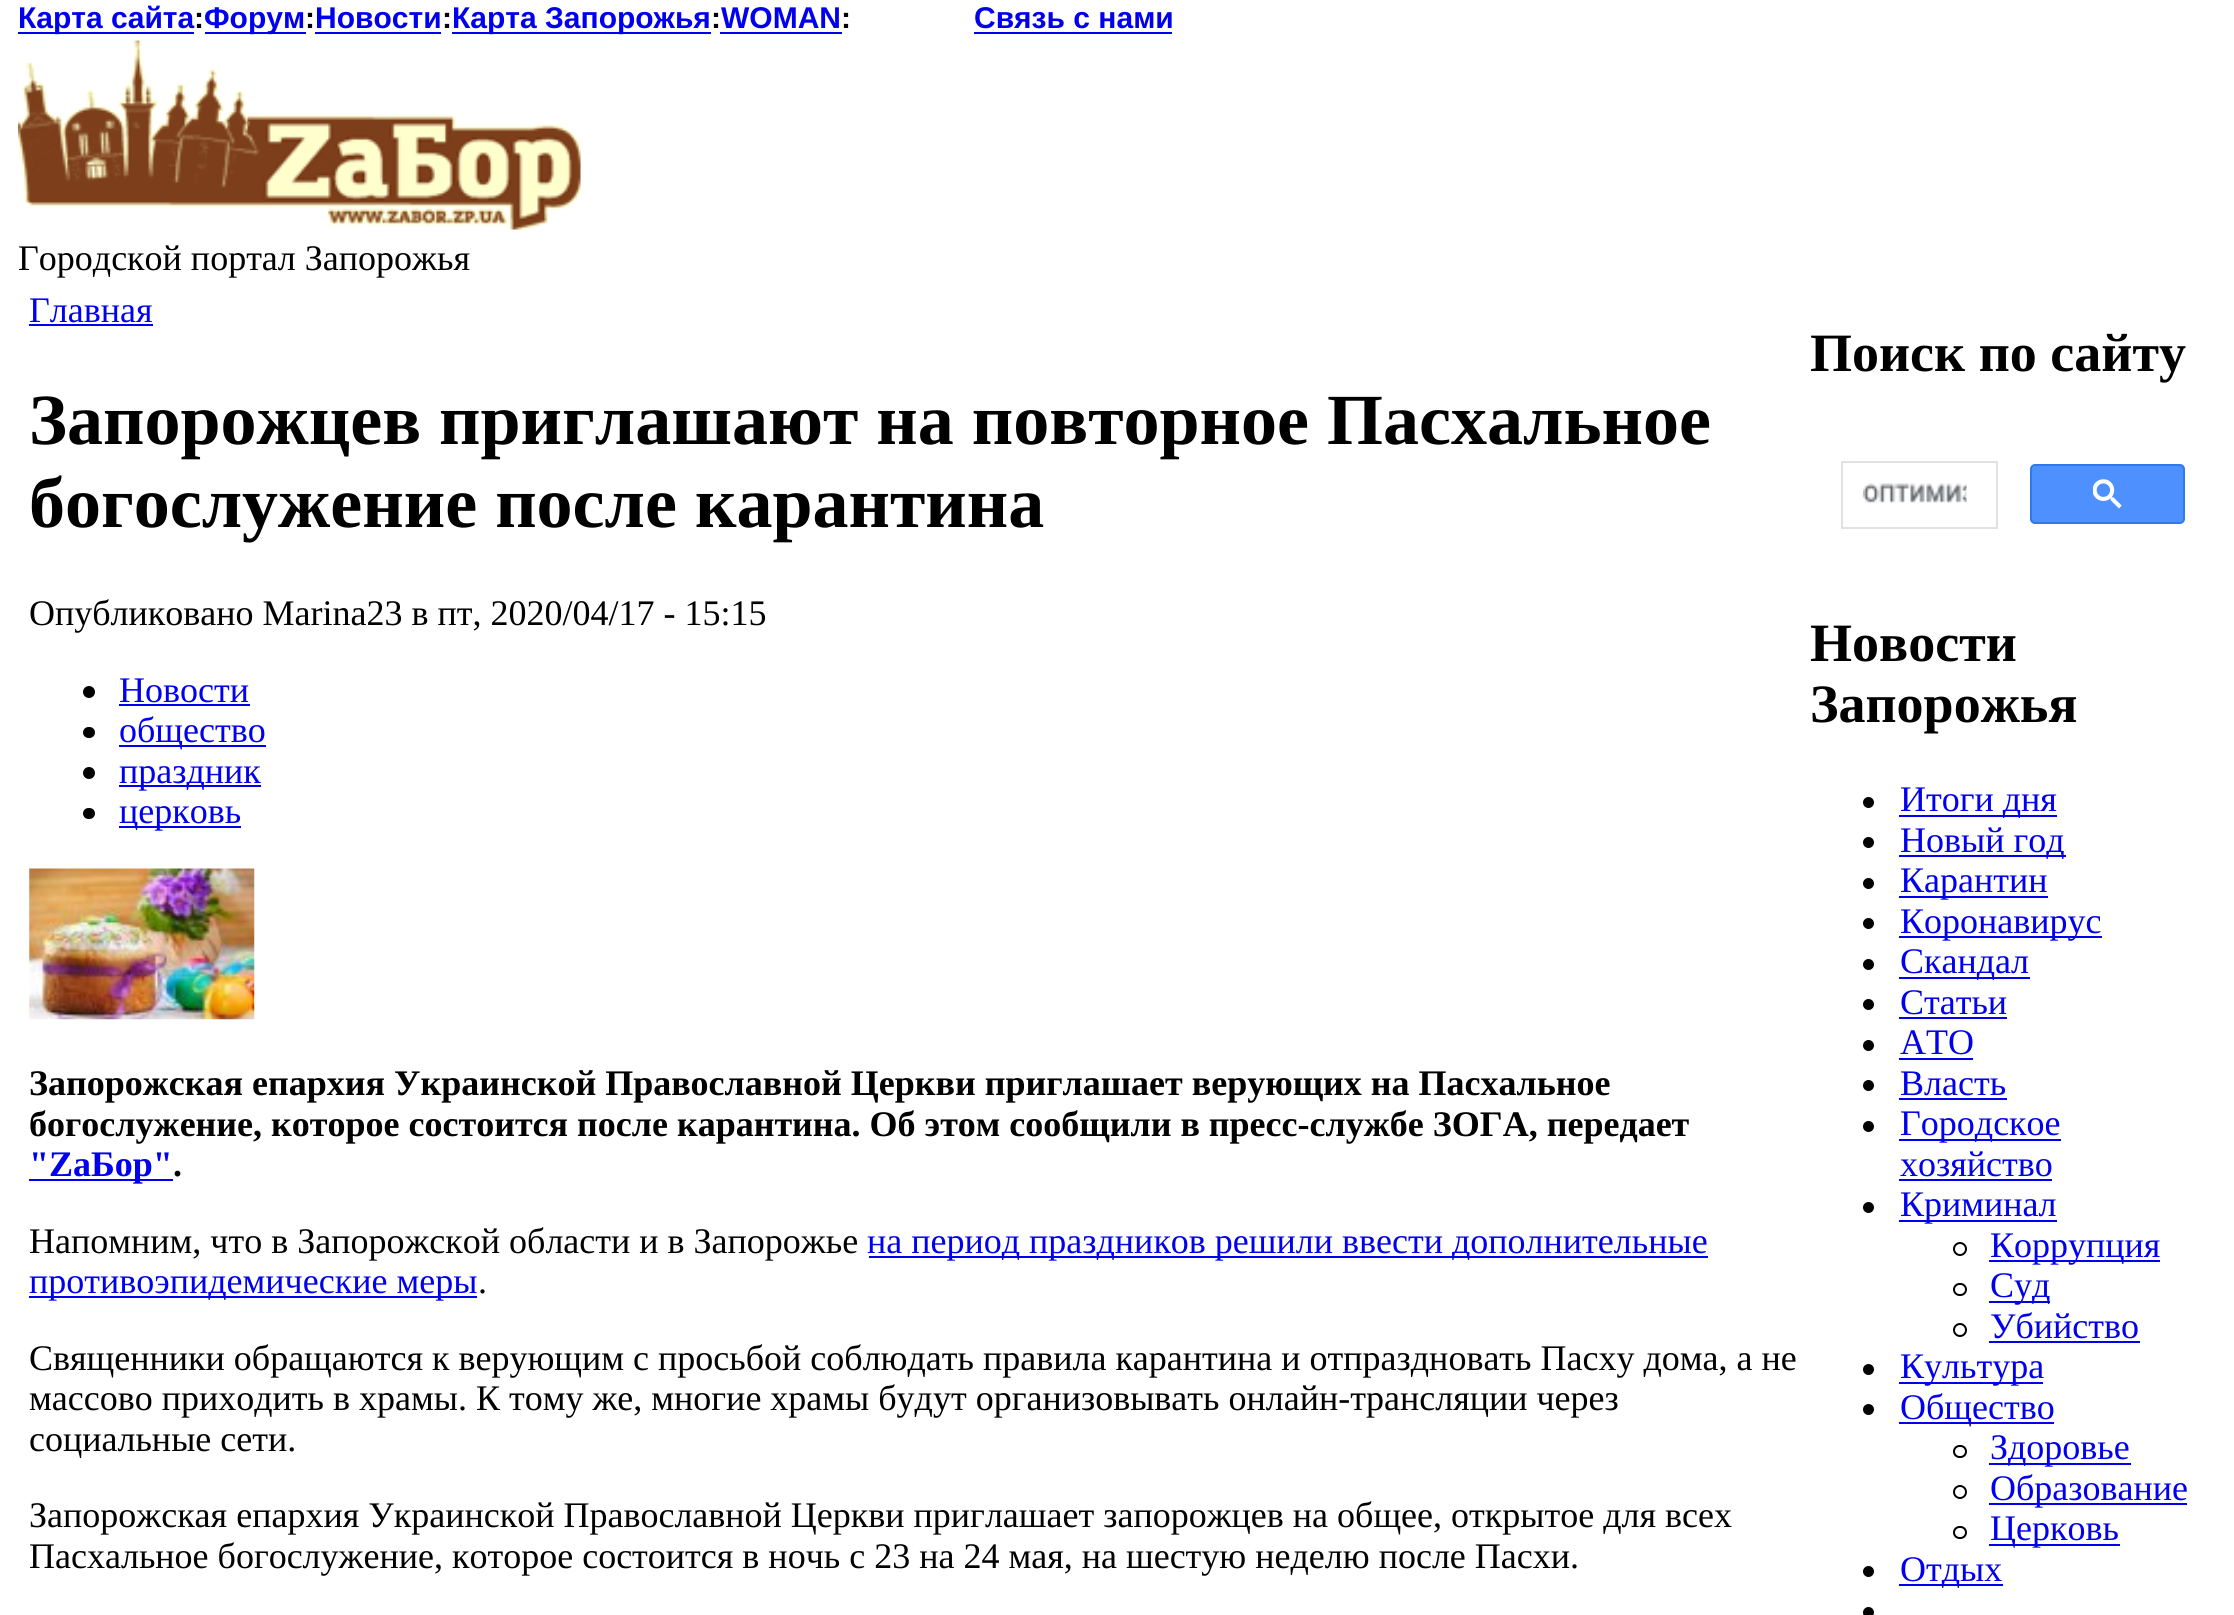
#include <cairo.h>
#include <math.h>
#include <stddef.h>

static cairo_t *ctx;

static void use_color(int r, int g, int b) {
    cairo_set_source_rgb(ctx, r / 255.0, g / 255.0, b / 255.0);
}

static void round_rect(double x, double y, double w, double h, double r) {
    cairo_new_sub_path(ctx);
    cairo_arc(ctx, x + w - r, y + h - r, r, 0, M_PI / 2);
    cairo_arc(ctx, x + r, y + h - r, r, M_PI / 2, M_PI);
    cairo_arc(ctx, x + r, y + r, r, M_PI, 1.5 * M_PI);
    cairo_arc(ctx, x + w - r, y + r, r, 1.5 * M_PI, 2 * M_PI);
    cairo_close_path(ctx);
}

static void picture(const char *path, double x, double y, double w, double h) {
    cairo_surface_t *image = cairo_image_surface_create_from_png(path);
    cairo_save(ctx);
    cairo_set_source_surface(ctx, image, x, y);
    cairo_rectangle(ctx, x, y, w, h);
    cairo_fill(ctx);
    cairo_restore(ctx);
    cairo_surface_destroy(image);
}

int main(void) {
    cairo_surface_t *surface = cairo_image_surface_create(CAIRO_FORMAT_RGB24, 2234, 1615);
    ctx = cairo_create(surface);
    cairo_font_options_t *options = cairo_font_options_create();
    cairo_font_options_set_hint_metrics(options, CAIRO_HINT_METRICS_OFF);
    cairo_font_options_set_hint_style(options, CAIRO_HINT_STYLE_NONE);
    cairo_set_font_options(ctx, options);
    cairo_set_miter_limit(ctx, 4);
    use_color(255, 255, 255);
    cairo_paint(ctx);
    use_color(0, 0, 238);
    cairo_rectangle(ctx, 18, 32, 176, 2);
    cairo_fill(ctx);
    cairo_select_font_face(ctx, "Liberation Sans", CAIRO_FONT_SLANT_NORMAL, CAIRO_FONT_WEIGHT_BOLD);
    cairo_set_font_size(ctx, 30);
    cairo_move_to(ctx, 18, 28);
    cairo_show_text(ctx, "Карта сайта");
    use_color(0, 0, 0);
    cairo_move_to(ctx, 194, 28);
    cairo_show_text(ctx, ":");
    use_color(0, 0, 238);
    cairo_rectangle(ctx, 205, 32, 101, 2);
    cairo_fill(ctx);
    cairo_move_to(ctx, 204, 28);
    cairo_show_text(ctx, "Форум");
    use_color(0, 0, 0);
    cairo_move_to(ctx, 305, 28);
    cairo_show_text(ctx, ":");
    use_color(0, 0, 238);
    cairo_move_to(ctx, 315, 28);
    cairo_show_text(ctx, "Новости");
    cairo_rectangle(ctx, 315, 32, 126, 2);
    cairo_fill(ctx);
    use_color(0, 0, 0);
    cairo_move_to(ctx, 442, 28);
    cairo_show_text(ctx, ":");
    use_color(0, 0, 238);
    cairo_rectangle(ctx, 452, 32, 259, 2);
    cairo_fill(ctx);
    cairo_move_to(ctx, 452, 28);
    cairo_show_text(ctx, "Карта Запорожья");
    use_color(0, 0, 0);
    cairo_move_to(ctx, 711, 28);
    cairo_show_text(ctx, ":");
    use_color(0, 0, 238);
    cairo_move_to(ctx, 721, 28);
    cairo_show_text(ctx, "WOMAN");
    cairo_rectangle(ctx, 720, 32, 122, 2);
    cairo_fill(ctx);
    use_color(0, 0, 0);
    cairo_move_to(ctx, 841, 28);
    cairo_show_text(ctx, ":");
    use_color(0, 0, 238);
    cairo_move_to(ctx, 974, 28);
    cairo_show_text(ctx, "Связь с нами");
    cairo_rectangle(ctx, 974, 32, 198, 2);
    cairo_fill(ctx);
    picture("img1.png", 18, 40, 563, 190);
    cairo_select_font_face(ctx, "Liberation Serif", CAIRO_FONT_SLANT_NORMAL, CAIRO_FONT_WEIGHT_NORMAL);
    cairo_set_font_size(ctx, 36);
    use_color(0, 0, 0);
    cairo_move_to(ctx, 18, 270);
    cairo_show_text(ctx, "Городской портал Запорожья");
    use_color(0, 0, 238);
    cairo_move_to(ctx, 29, 322);
    cairo_show_text(ctx, "Главная");
    cairo_rectangle(ctx, 29, 324, 124, 2);
    cairo_fill(ctx);
    cairo_select_font_face(ctx, "Liberation Serif", CAIRO_FONT_SLANT_NORMAL, CAIRO_FONT_WEIGHT_BOLD);
    cairo_set_font_size(ctx, 72);
    use_color(0, 0, 0);
    cairo_move_to(ctx, 29, 444);
    cairo_show_text(ctx, "Запорожцев приглашают на повторное Пасхальное");
    cairo_move_to(ctx, 29, 527);
    cairo_show_text(ctx, "богослужение после карантина");
    cairo_select_font_face(ctx, "Liberation Serif", CAIRO_FONT_SLANT_NORMAL, CAIRO_FONT_WEIGHT_NORMAL);
    cairo_set_font_size(ctx, 36);
    cairo_move_to(ctx, 29, 625);
    cairo_show_text(ctx, "Опубликовано Marina23 в пт, 2020/04/17 - 15:15");
    cairo_new_path(ctx);
    cairo_arc(ctx, 89, 692, 6, 0, 2 * M_PI);
    cairo_fill(ctx);
    use_color(0, 0, 238);
    cairo_move_to(ctx, 119, 702);
    cairo_show_text(ctx, "Новости");
    cairo_rectangle(ctx, 119, 704, 131, 2);
    cairo_fill(ctx);
    use_color(0, 0, 0);
    round_rect(83, 727, 12, 11, 5.5);
    cairo_fill(ctx);
    use_color(0, 0, 238);
    cairo_rectangle(ctx, 119, 745, 147, 2);
    cairo_fill(ctx);
    cairo_move_to(ctx, 119, 742);
    cairo_show_text(ctx, "общество");
    use_color(0, 0, 0);
    cairo_new_path(ctx);
    cairo_arc(ctx, 89, 773, 6, 0, 2 * M_PI);
    cairo_fill(ctx);
    use_color(0, 0, 238);
    cairo_rectangle(ctx, 119, 785, 142, 2);
    cairo_fill(ctx);
    cairo_move_to(ctx, 119, 783);
    cairo_show_text(ctx, "праздник");
    use_color(0, 0, 0);
    round_rect(83, 808, 12, 11, 5.5);
    cairo_fill(ctx);
    use_color(0, 0, 238);
    cairo_rectangle(ctx, 119, 826, 122, 2);
    cairo_fill(ctx);
    cairo_move_to(ctx, 119, 823);
    cairo_show_text(ctx, "церковь");
    picture("img2.png", 29, 868, 226, 152);
    cairo_select_font_face(ctx, "Liberation Serif", CAIRO_FONT_SLANT_NORMAL, CAIRO_FONT_WEIGHT_BOLD);
    use_color(0, 0, 0);
    cairo_move_to(ctx, 29, 1095);
    cairo_show_text(ctx, "Запорожская епархия Украинской Православной Церкви приглашает верующих на Пасхальное");
    cairo_move_to(ctx, 29, 1136);
    cairo_show_text(ctx, "богослужение, которое состоится после карантина. Об этом сообщили в пресс-службе ЗОГА, передает");
    use_color(0, 0, 238);
    cairo_rectangle(ctx, 29, 1179, 144, 2);
    cairo_fill(ctx);
    cairo_move_to(ctx, 29, 1176);
    cairo_show_text(ctx, "\"ZаБор\"");
    use_color(0, 0, 0);
    cairo_move_to(ctx, 173, 1176);
    cairo_show_text(ctx, ".");
    cairo_select_font_face(ctx, "Liberation Serif", CAIRO_FONT_SLANT_NORMAL, CAIRO_FONT_WEIGHT_NORMAL);
    cairo_move_to(ctx, 29, 1253);
    cairo_show_text(ctx, "Напомним, что в Запорожской области и в Запорожье");
    use_color(0, 0, 238);
    cairo_rectangle(ctx, 869, 1256, 839, 2);
    cairo_fill(ctx);
    cairo_move_to(ctx, 867, 1253);
    cairo_show_text(ctx, "на период праздников решили ввести дополнительные");
    cairo_rectangle(ctx, 29, 1296, 448, 2);
    cairo_fill(ctx);
    cairo_move_to(ctx, 29, 1293);
    cairo_show_text(ctx, "противоэпидемические меры");
    use_color(0, 0, 0);
    cairo_move_to(ctx, 478, 1293);
    cairo_show_text(ctx, ".");
    cairo_move_to(ctx, 29, 1370);
    cairo_show_text(ctx, "Священники обращаются к верующим с просьбой соблюдать правила карантина и отпраздновать Пасху дома, а не");
    cairo_move_to(ctx, 29, 1410);
    cairo_show_text(ctx, "массово приходить в храмы. К тому же, многие храмы будут организовывать онлайн-трансляции через");
    cairo_move_to(ctx, 29, 1451);
    cairo_show_text(ctx, "социальные сети.");
    cairo_move_to(ctx, 29, 1527);
    cairo_show_text(ctx, "Запорожская епархия Украинской Православной Церкви приглашает запорожцев на общее, открытое для всех");
    cairo_move_to(ctx, 29, 1568);
    cairo_show_text(ctx, "Пасхальное богослужение, которое состоится в ночь с 23 на 24 мая, на шестую неделю после Пасхи.");
    cairo_select_font_face(ctx, "Liberation Serif", CAIRO_FONT_SLANT_NORMAL, CAIRO_FONT_WEIGHT_BOLD);
    cairo_set_font_size(ctx, 54);
    cairo_move_to(ctx, 1810, 371);
    cairo_show_text(ctx, "Поиск по сайту");
    cairo_rectangle(ctx, 1842, 462, 155, 66);
    use_color(223, 225, 229);
    cairo_stroke(ctx);
    picture("img3.png", 1863, 483, 104, 20);
    use_color(77, 144, 254);
    round_rect(2031, 465, 153, 58, 4);
    cairo_fill_preserve(ctx);
    use_color(48, 121, 237);
    cairo_stroke(ctx);
    picture("img4.png", 2093, 479, 29, 30);
    use_color(0, 0, 0);
    cairo_move_to(ctx, 1810, 661);
    cairo_show_text(ctx, "Новости");
    cairo_move_to(ctx, 1810, 722);
    cairo_show_text(ctx, "Запорожья");
    cairo_new_path(ctx);
    cairo_arc(ctx, 1868.5, 802.5, 5.5, 0, 2 * M_PI);
    cairo_fill(ctx);
    use_color(0, 0, 238);
    cairo_rectangle(ctx, 1899, 815, 158, 2);
    cairo_fill(ctx);
    cairo_select_font_face(ctx, "Liberation Serif", CAIRO_FONT_SLANT_NORMAL, CAIRO_FONT_WEIGHT_NORMAL);
    cairo_set_font_size(ctx, 36);
    cairo_move_to(ctx, 1900, 811);
    cairo_show_text(ctx, "Итоги дня");
    use_color(0, 0, 0);
    cairo_new_path(ctx);
    cairo_arc(ctx, 1868.5, 842.5, 5.5, 0, 2 * M_PI);
    cairo_fill(ctx);
    use_color(0, 0, 238);
    cairo_rectangle(ctx, 1899, 855, 167, 2);
    cairo_fill(ctx);
    cairo_move_to(ctx, 1900, 852);
    cairo_show_text(ctx, "Новый год");
    use_color(0, 0, 0);
    cairo_new_path(ctx);
    cairo_arc(ctx, 1868.5, 883.5, 5.5, 0, 2 * M_PI);
    cairo_fill(ctx);
    use_color(0, 0, 238);
    cairo_rectangle(ctx, 1899, 896, 149, 2);
    cairo_fill(ctx);
    cairo_move_to(ctx, 1900, 892);
    cairo_show_text(ctx, "Карантин");
    use_color(0, 0, 0);
    cairo_new_path(ctx);
    cairo_arc(ctx, 1868.5, 923.5, 5.5, 0, 2 * M_PI);
    cairo_fill(ctx);
    use_color(0, 0, 238);
    cairo_rectangle(ctx, 1899, 936, 203, 2);
    cairo_fill(ctx);
    cairo_move_to(ctx, 1900, 933);
    cairo_show_text(ctx, "Коронавирус");
    use_color(0, 0, 0);
    cairo_new_path(ctx);
    cairo_arc(ctx, 1868.5, 964.5, 5.5, 0, 2 * M_PI);
    cairo_fill(ctx);
    use_color(0, 0, 238);
    cairo_rectangle(ctx, 1899, 977, 131, 2);
    cairo_fill(ctx);
    cairo_move_to(ctx, 1900, 973);
    cairo_show_text(ctx, "Скандал");
    use_color(0, 0, 0);
    cairo_new_path(ctx);
    cairo_arc(ctx, 1868.5, 1004.5, 5.5, 0, 2 * M_PI);
    cairo_fill(ctx);
    use_color(0, 0, 238);
    cairo_move_to(ctx, 1900, 1014);
    cairo_show_text(ctx, "Статьи");
    cairo_rectangle(ctx, 1899, 1017, 108, 2);
    cairo_fill(ctx);
    use_color(0, 0, 0);
    cairo_arc(ctx, 1868.5, 1045.5, 5.5, 0, 2 * M_PI);
    cairo_fill(ctx);
    use_color(0, 0, 238);
    cairo_move_to(ctx, 1900, 1054);
    cairo_show_text(ctx, "АТО");
    cairo_rectangle(ctx, 1899, 1058, 74, 2);
    cairo_fill(ctx);
    use_color(0, 0, 0);
    cairo_arc(ctx, 1868.5, 1085.5, 5.5, 0, 2 * M_PI);
    cairo_fill(ctx);
    use_color(0, 0, 238);
    cairo_move_to(ctx, 1900, 1095);
    cairo_show_text(ctx, "Власть");
    cairo_rectangle(ctx, 1899, 1098, 108, 2);
    cairo_fill(ctx);
    use_color(0, 0, 0);
    cairo_arc(ctx, 1868.5, 1126.5, 5.5, 0, 2 * M_PI);
    cairo_fill(ctx);
    use_color(0, 0, 238);
    cairo_rectangle(ctx, 1899, 1139, 162, 2);
    cairo_fill(ctx);
    cairo_move_to(ctx, 1900, 1135);
    cairo_show_text(ctx, "Городское");
    cairo_move_to(ctx, 1900, 1176);
    cairo_show_text(ctx, "хозяйство");
    cairo_rectangle(ctx, 1899, 1179, 153, 2);
    cairo_fill(ctx);
    use_color(0, 0, 0);
    cairo_arc(ctx, 1868.5, 1207.5, 5.5, 0, 2 * M_PI);
    cairo_fill(ctx);
    use_color(0, 0, 238);
    cairo_rectangle(ctx, 1899, 1220, 158, 2);
    cairo_fill(ctx);
    cairo_move_to(ctx, 1900, 1216);
    cairo_show_text(ctx, "Криминал");
    cairo_new_path(ctx);
    cairo_arc(ctx, 1960, 1249, 6, 0, 2 * M_PI);
    use_color(0, 0, 0);
    cairo_stroke(ctx);
    use_color(0, 0, 238);
    cairo_rectangle(ctx, 1989, 1260, 171, 2);
    cairo_fill(ctx);
    cairo_move_to(ctx, 1990, 1257);
    cairo_show_text(ctx, "Коррупция");
    round_rect(1954, 1284, 12, 11, 5.5);
    use_color(0, 0, 0);
    cairo_stroke(ctx);
    use_color(0, 0, 238);
    cairo_rectangle(ctx, 1989, 1301, 61, 2);
    cairo_fill(ctx);
    cairo_move_to(ctx, 1990, 1297);
    cairo_show_text(ctx, "Суд");
    cairo_new_path(ctx);
    cairo_arc(ctx, 1960, 1330, 6, 0, 2 * M_PI);
    use_color(0, 0, 0);
    cairo_stroke(ctx);
    use_color(0, 0, 238);
    cairo_move_to(ctx, 1990, 1338);
    cairo_show_text(ctx, "Убийство");
    cairo_rectangle(ctx, 1989, 1341, 151, 2);
    cairo_fill(ctx);
    use_color(0, 0, 0);
    cairo_arc(ctx, 1868.5, 1369.5, 5.5, 0, 2 * M_PI);
    cairo_fill(ctx);
    use_color(0, 0, 238);
    cairo_rectangle(ctx, 1899, 1382, 144, 2);
    cairo_fill(ctx);
    cairo_move_to(ctx, 1900, 1378);
    cairo_show_text(ctx, "Культура");
    use_color(0, 0, 0);
    cairo_new_path(ctx);
    cairo_arc(ctx, 1868.5, 1409.5, 5.5, 0, 2 * M_PI);
    cairo_fill(ctx);
    use_color(0, 0, 238);
    cairo_rectangle(ctx, 1899, 1422, 155, 2);
    cairo_fill(ctx);
    cairo_move_to(ctx, 1900, 1419);
    cairo_show_text(ctx, "Общество");
    round_rect(1954, 1446, 12, 11, 5.5);
    use_color(0, 0, 0);
    cairo_stroke(ctx);
    use_color(0, 0, 238);
    cairo_rectangle(ctx, 1989, 1463, 142, 2);
    cairo_fill(ctx);
    cairo_move_to(ctx, 1990, 1459);
    cairo_show_text(ctx, "Здоровье");
    cairo_new_path(ctx);
    cairo_arc(ctx, 1960, 1492, 6, 0, 2 * M_PI);
    use_color(0, 0, 0);
    cairo_stroke(ctx);
    use_color(0, 0, 238);
    cairo_rectangle(ctx, 1989, 1503, 198, 2);
    cairo_fill(ctx);
    cairo_move_to(ctx, 1990, 1500);
    cairo_show_text(ctx, "Образование");
    round_rect(1954, 1527, 12, 11, 5.5);
    use_color(0, 0, 0);
    cairo_stroke(ctx);
    use_color(0, 0, 238);
    cairo_rectangle(ctx, 1989, 1544, 131, 2);
    cairo_fill(ctx);
    cairo_move_to(ctx, 1990, 1540);
    cairo_show_text(ctx, "Церковь");
    use_color(0, 0, 0);
    cairo_new_path(ctx);
    cairo_arc(ctx, 1868.5, 1571.5, 5.5, 0, 2 * M_PI);
    cairo_fill(ctx);
    use_color(0, 0, 238);
    cairo_rectangle(ctx, 1899, 1584, 104, 2);
    cairo_fill(ctx);
    cairo_move_to(ctx, 1900, 1581);
    cairo_show_text(ctx, "Отдых");
    use_color(0, 0, 0);
    cairo_new_path(ctx);
    cairo_arc(ctx, 1868.5, 1612.5, 5.5, 0, 2 * M_PI);
    cairo_fill(ctx);
    cairo_surface_write_to_png(surface, "result.png");
    cairo_font_options_destroy(options);
    cairo_destroy(ctx);
    cairo_surface_destroy(surface);
    return 0;
}
